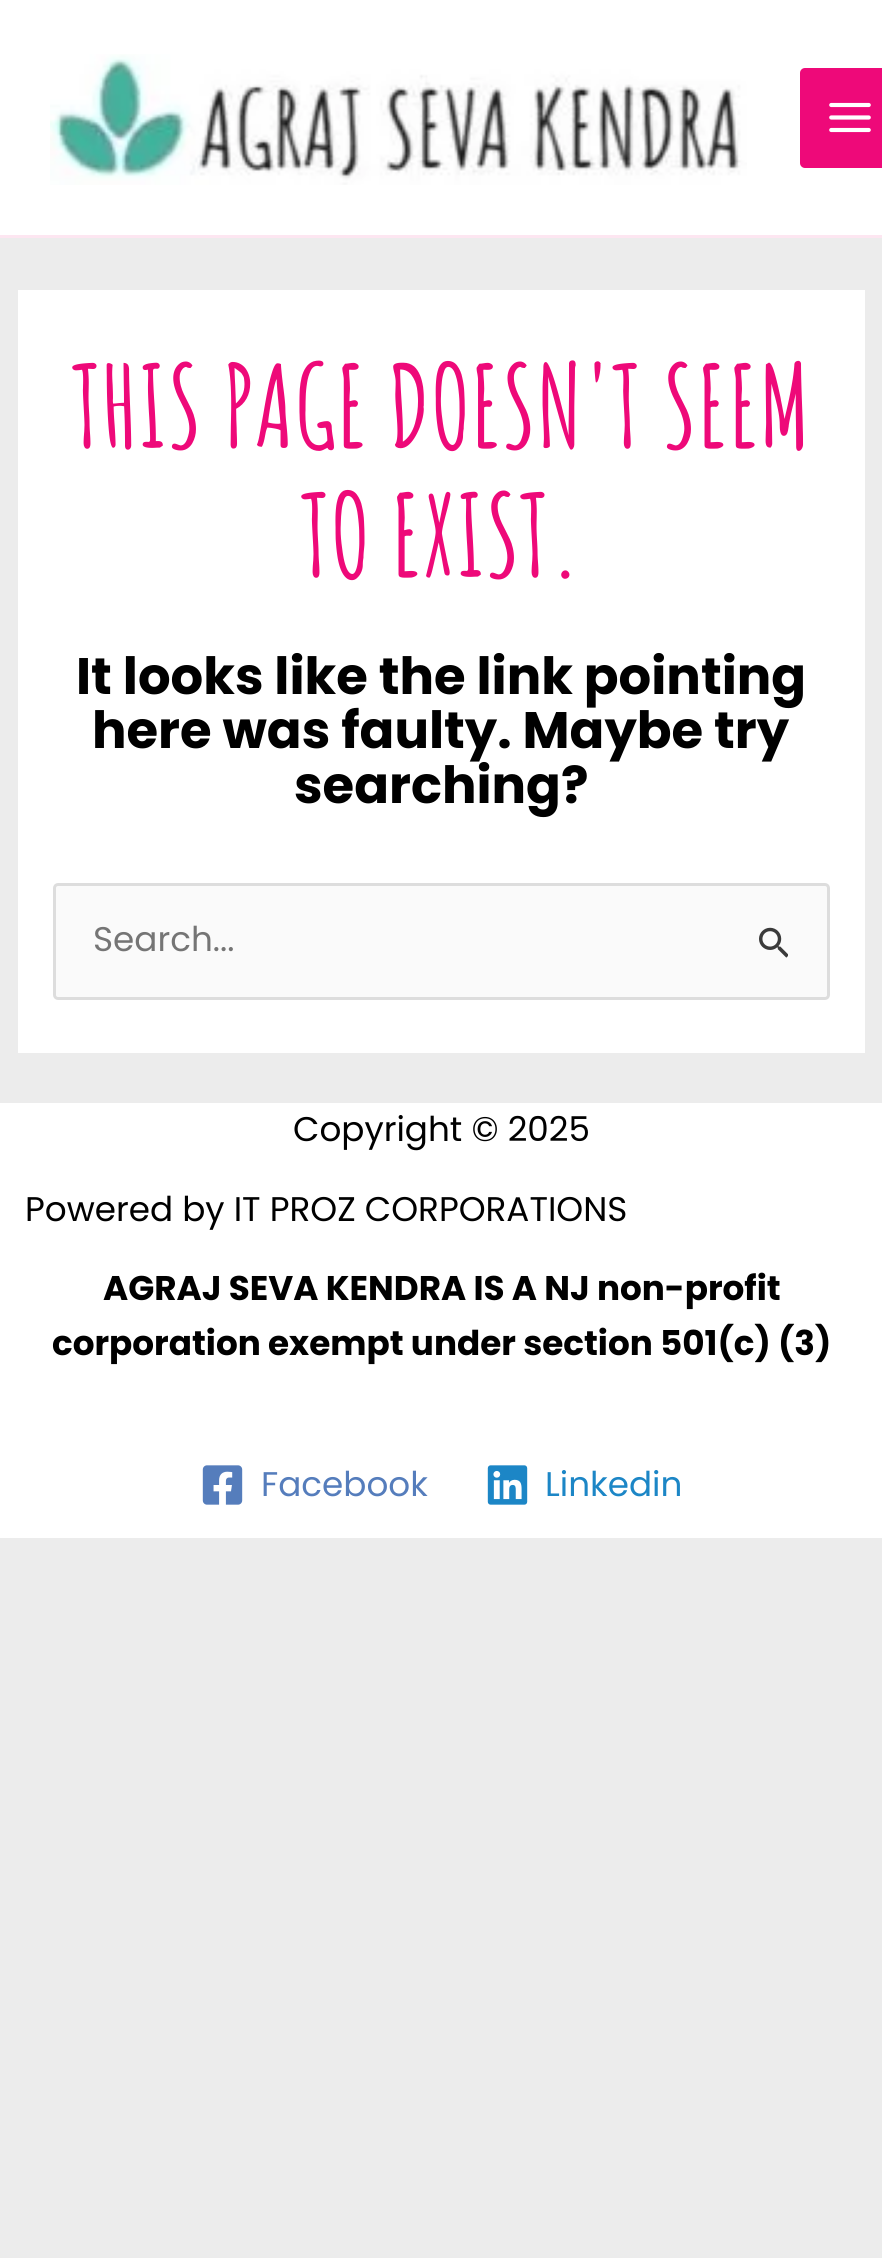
#include <cairo.h>
#include <math.h>
#include <stddef.h>

static cairo_t *ctx;

static void use_color(int r, int g, int b) {
    cairo_set_source_rgb(ctx, r / 255.0, g / 255.0, b / 255.0);
}

static void round_rect(double x, double y, double w, double h, double r) {
    cairo_new_sub_path(ctx);
    cairo_arc(ctx, x + w - r, y + h - r, r, 0, M_PI / 2);
    cairo_arc(ctx, x + r, y + h - r, r, M_PI / 2, M_PI);
    cairo_arc(ctx, x + r, y + r, r, M_PI, 1.5 * M_PI);
    cairo_arc(ctx, x + w - r, y + r, r, 1.5 * M_PI, 2 * M_PI);
    cairo_close_path(ctx);
}

static void picture(const char *path, double x, double y, double w, double h) {
    cairo_surface_t *image = cairo_image_surface_create_from_png(path);
    cairo_save(ctx);
    cairo_set_source_surface(ctx, image, x, y);
    cairo_rectangle(ctx, x, y, w, h);
    cairo_fill(ctx);
    cairo_restore(ctx);
    cairo_surface_destroy(image);
}

int main(void) {
    cairo_surface_t *surface = cairo_image_surface_create(CAIRO_FORMAT_RGB24, 882, 2258);
    ctx = cairo_create(surface);
    cairo_font_options_t *options = cairo_font_options_create();
    cairo_font_options_set_hint_metrics(options, CAIRO_HINT_METRICS_OFF);
    cairo_font_options_set_hint_style(options, CAIRO_HINT_STYLE_NONE);
    cairo_set_font_options(ctx, options);
    cairo_set_miter_limit(ctx, 4);
    use_color(236, 236, 236);
    cairo_paint(ctx);
    use_color(255, 255, 255);
    cairo_rectangle(ctx, 0, 0, 882, 235);
    cairo_fill(ctx);
    use_color(253, 230, 241);
    cairo_rectangle(ctx, 0, 235, 882, 3);
    cairo_fill(ctx);
    picture("img1.png", 50, 54, 697, 131);
    use_color(238, 9, 121);
    round_rect(800, 68, 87, 100, 5);
    cairo_fill(ctx);
    picture("img2.png", 829, 102, 42, 31);
    use_color(255, 255, 255);
    cairo_rectangle(ctx, 18, 290, 847, 763);
    cairo_fill(ctx);
    cairo_select_font_face(ctx, "Amatic SC", CAIRO_FONT_SLANT_NORMAL, CAIRO_FONT_WEIGHT_BOLD);
    cairo_set_font_size(ctx, 112.5);
    use_color(238, 9, 121);
    cairo_move_to(ctx, 72, 448);
    cairo_show_text(ctx, "THIS PAGE DOESN'T SEEM");
    cairo_move_to(ctx, 301, 577);
    cairo_show_text(ctx, "TO EXIST.");
    cairo_select_font_face(ctx, "Poppins", CAIRO_FONT_SLANT_NORMAL, CAIRO_FONT_WEIGHT_BOLD);
    cairo_set_font_size(ctx, 51.25);
    use_color(0, 0, 0);
    cairo_move_to(ctx, 76, 694);
    cairo_show_text(ctx, "It looks like the link pointing");
    cairo_move_to(ctx, 92, 748);
    cairo_show_text(ctx, "here was faulty. Maybe try");
    cairo_move_to(ctx, 294, 803);
    cairo_show_text(ctx, "searching?");
    use_color(250, 250, 250);
    round_rect(54.5, 884.5, 774, 114, 3.5);
    cairo_fill_preserve(ctx);
    use_color(221, 221, 221);
    cairo_set_line_width(ctx, 3);
    cairo_stroke(ctx);
    cairo_select_font_face(ctx, "Poppins", CAIRO_FONT_SLANT_NORMAL, CAIRO_FONT_WEIGHT_NORMAL);
    cairo_set_font_size(ctx, 34.2);
    use_color(117, 117, 117);
    cairo_move_to(ctx, 93, 951);
    cairo_show_text(ctx, "Search...");
    picture("img3.png", 759, 927, 29, 31);
    use_color(255, 255, 255);
    cairo_rectangle(ctx, 0, 1103, 882, 435);
    cairo_fill(ctx);
    use_color(0, 0, 0);
    cairo_move_to(ctx, 293, 1141);
    cairo_show_text(ctx, "Copyright © 2025");
    cairo_move_to(ctx, 25, 1221);
    cairo_show_text(ctx, "Powered by IT PROZ CORPORATIONS");
    cairo_select_font_face(ctx, "Poppins", CAIRO_FONT_SLANT_NORMAL, CAIRO_FONT_WEIGHT_BOLD);
    cairo_move_to(ctx, 103, 1300);
    cairo_show_text(ctx, "AGRAJ SEVA KENDRA IS A NJ non-profit");
    cairo_move_to(ctx, 52, 1355);
    cairo_show_text(ctx, "corporation exempt under section 501(c) (3)");
    picture("img4.png", 202, 1465, 41, 40);
    cairo_select_font_face(ctx, "Poppins", CAIRO_FONT_SLANT_NORMAL, CAIRO_FONT_WEIGHT_NORMAL);
    use_color(85, 125, 188);
    cairo_move_to(ctx, 261, 1496);
    cairo_show_text(ctx, "Facebook");
    picture("img5.png", 487, 1465, 41, 40);
    use_color(28, 134, 198);
    cairo_move_to(ctx, 545, 1496);
    cairo_show_text(ctx, "Linkedin");
    cairo_surface_write_to_png(surface, "result.png");
    cairo_font_options_destroy(options);
    cairo_destroy(ctx);
    cairo_surface_destroy(surface);
    return 0;
}
